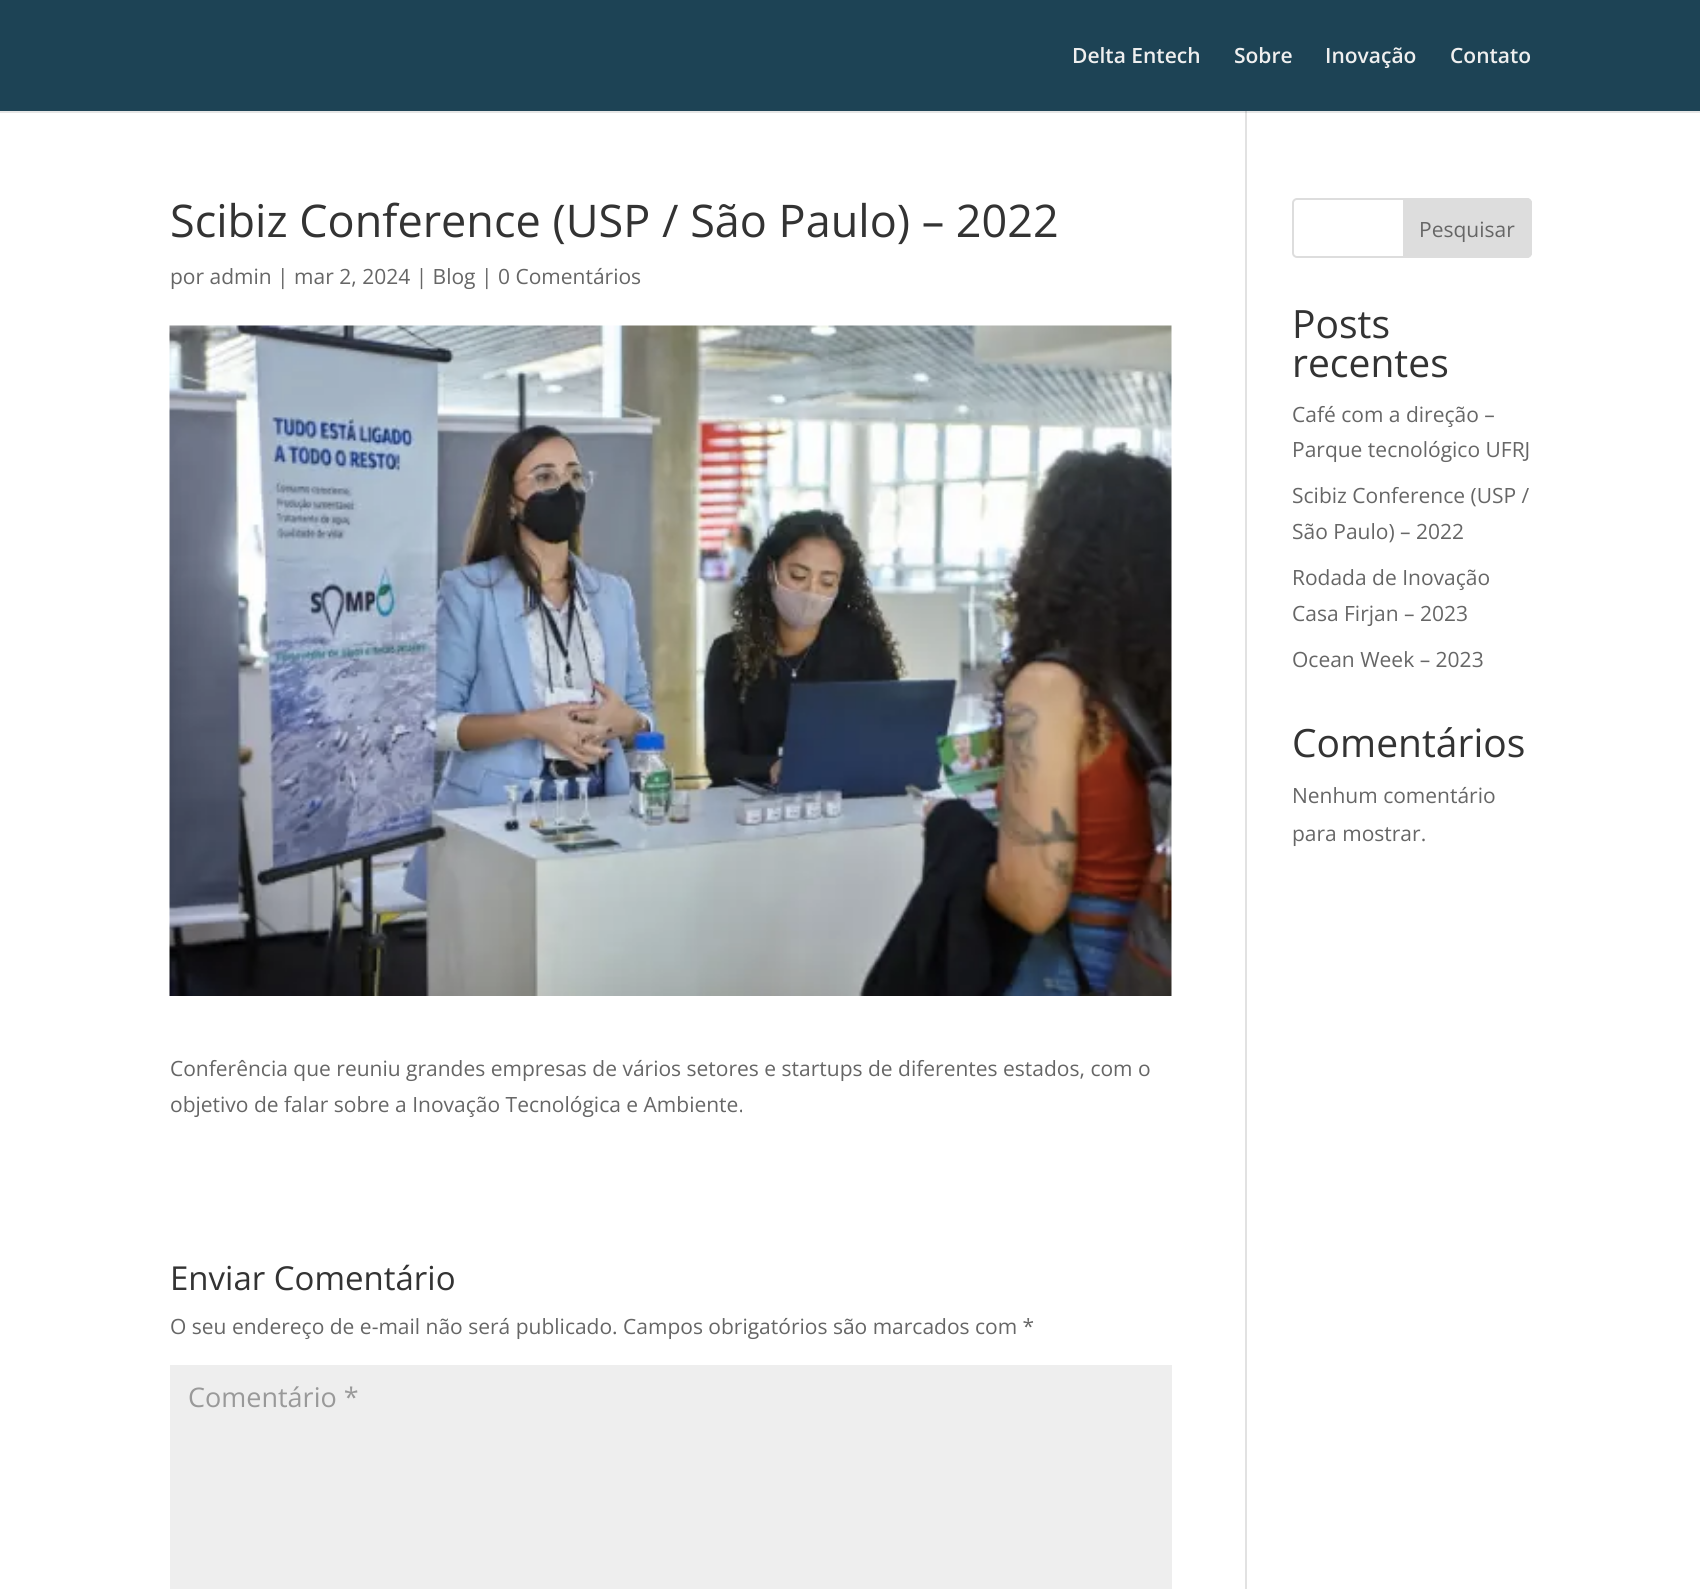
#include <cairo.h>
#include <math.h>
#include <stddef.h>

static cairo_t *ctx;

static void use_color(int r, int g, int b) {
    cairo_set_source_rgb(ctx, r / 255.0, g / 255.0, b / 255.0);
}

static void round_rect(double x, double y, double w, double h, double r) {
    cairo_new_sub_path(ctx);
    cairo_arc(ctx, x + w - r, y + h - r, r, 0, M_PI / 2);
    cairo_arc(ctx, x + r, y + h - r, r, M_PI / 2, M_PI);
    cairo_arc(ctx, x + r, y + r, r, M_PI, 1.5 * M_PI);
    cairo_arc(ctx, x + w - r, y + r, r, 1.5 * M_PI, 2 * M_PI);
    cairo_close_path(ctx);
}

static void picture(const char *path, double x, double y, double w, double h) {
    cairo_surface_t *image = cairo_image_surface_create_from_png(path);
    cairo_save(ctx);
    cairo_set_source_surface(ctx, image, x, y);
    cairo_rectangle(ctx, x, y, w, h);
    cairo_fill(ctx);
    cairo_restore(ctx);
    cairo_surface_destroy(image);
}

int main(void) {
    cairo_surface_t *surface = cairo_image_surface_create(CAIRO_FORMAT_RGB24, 1700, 1589);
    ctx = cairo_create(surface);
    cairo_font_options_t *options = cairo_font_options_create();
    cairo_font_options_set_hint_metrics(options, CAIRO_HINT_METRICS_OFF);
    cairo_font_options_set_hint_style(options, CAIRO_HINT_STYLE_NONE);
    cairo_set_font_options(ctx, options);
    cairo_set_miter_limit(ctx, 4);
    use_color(29, 67, 85);
    cairo_paint(ctx);
    cairo_select_font_face(ctx, "Open Sans SemiBold", CAIRO_FONT_SLANT_NORMAL, CAIRO_FONT_WEIGHT_NORMAL);
    cairo_set_font_size(ctx, 21);
    use_color(239, 239, 239);
    cairo_move_to(ctx, 1072, 63);
    cairo_show_text(ctx, "Delta Entech");
    cairo_move_to(ctx, 1234, 63);
    cairo_show_text(ctx, "Sobre");
    cairo_move_to(ctx, 1325, 63);
    cairo_show_text(ctx, "Inovação");
    cairo_move_to(ctx, 1450, 63);
    cairo_show_text(ctx, "Contato");
    use_color(255, 255, 255);
    cairo_rectangle(ctx, 0, 113, 1700, 1476);
    cairo_fill(ctx);
    use_color(230, 230, 230);
    cairo_rectangle(ctx, 0, 111, 1700, 2);
    cairo_fill(ctx);
    use_color(226, 226, 226);
    cairo_rectangle(ctx, 1245, 111, 2, 1478);
    cairo_fill(ctx);
    use_color(203, 203, 203);
    cairo_rectangle(ctx, 1245, 111, 2, 2);
    cairo_fill(ctx);
    cairo_select_font_face(ctx, "Open Sans", CAIRO_FONT_SLANT_NORMAL, CAIRO_FONT_WEIGHT_NORMAL);
    cairo_set_font_size(ctx, 45);
    use_color(51, 51, 51);
    cairo_move_to(ctx, 170, 237);
    cairo_show_text(ctx, "Scibiz Conference (USP / São Paulo) – 2022");
    cairo_set_font_size(ctx, 21);
    use_color(102, 102, 102);
    cairo_move_to(ctx, 170, 284);
    cairo_show_text(ctx, "por admin | mar 2, 2024 | Blog | 0 Comentários");
    picture("img1.png", 169, 325, 1003, 671);
    cairo_move_to(ctx, 170, 1076);
    cairo_show_text(ctx, "Conferência que reuniu grandes empresas de vários setores e startups de diferentes estados, com o");
    cairo_move_to(ctx, 170, 1112);
    cairo_show_text(ctx, "objetivo de falar sobre a Inovação Tecnológica e Ambiente.");
    cairo_set_font_size(ctx, 33);
    use_color(51, 51, 51);
    cairo_move_to(ctx, 170, 1290);
    cairo_show_text(ctx, "Enviar Comentário");
    cairo_set_font_size(ctx, 21);
    use_color(102, 102, 102);
    cairo_move_to(ctx, 170, 1334);
    cairo_show_text(ctx, "O seu endereço de e-mail não será publicado. Campos obrigatórios são marcados com *");
    use_color(238, 238, 238);
    cairo_rectangle(ctx, 170, 1365, 1002, 224);
    cairo_fill(ctx);
    cairo_set_font_size(ctx, 27);
    use_color(153, 153, 153);
    cairo_move_to(ctx, 188, 1407);
    cairo_show_text(ctx, "Comentário *");
    round_rect(1293, 199, 238, 58, 4);
    use_color(221, 221, 221);
    cairo_stroke(ctx);
    cairo_new_path(ctx);
    cairo_move_to(ctx, 1404, 199);
    cairo_line_to(ctx, 1527, 199);
    cairo_curve_to(ctx, 1529, 199, 1531, 201, 1531, 203);
    cairo_line_to(ctx, 1531, 253);
    cairo_curve_to(ctx, 1531, 255, 1529, 257, 1527, 257);
    cairo_line_to(ctx, 1404, 257);
    cairo_close_path(ctx);
    cairo_fill_preserve(ctx);
    cairo_stroke(ctx);
    cairo_set_font_size(ctx, 21);
    use_color(102, 102, 102);
    cairo_move_to(ctx, 1419, 237);
    cairo_show_text(ctx, "Pesquisar");
    cairo_set_font_size(ctx, 39);
    use_color(51, 51, 51);
    cairo_move_to(ctx, 1292, 338);
    cairo_show_text(ctx, "Posts");
    cairo_move_to(ctx, 1292, 377);
    cairo_show_text(ctx, "recentes");
    cairo_set_font_size(ctx, 21);
    use_color(102, 102, 102);
    cairo_move_to(ctx, 1292, 422);
    cairo_show_text(ctx, "Café com a direção –");
    cairo_move_to(ctx, 1292, 457);
    cairo_show_text(ctx, "Parque tecnológico UFRJ");
    cairo_move_to(ctx, 1292, 503);
    cairo_show_text(ctx, "Scibiz Conference (USP /");
    cairo_move_to(ctx, 1292, 539);
    cairo_show_text(ctx, "São Paulo) – 2022");
    cairo_move_to(ctx, 1292, 585);
    cairo_show_text(ctx, "Rodada de Inovação");
    cairo_move_to(ctx, 1292, 621);
    cairo_show_text(ctx, "Casa Firjan – 2023");
    cairo_move_to(ctx, 1292, 667);
    cairo_show_text(ctx, "Ocean Week – 2023");
    cairo_set_font_size(ctx, 39);
    use_color(51, 51, 51);
    cairo_move_to(ctx, 1292, 757);
    cairo_show_text(ctx, "Comentários");
    cairo_set_font_size(ctx, 21);
    use_color(102, 102, 102);
    cairo_move_to(ctx, 1292, 803);
    cairo_show_text(ctx, "Nenhum comentário");
    cairo_move_to(ctx, 1292, 841);
    cairo_show_text(ctx, "para mostrar.");
    cairo_surface_write_to_png(surface, "result.png");
    cairo_font_options_destroy(options);
    cairo_destroy(ctx);
    cairo_surface_destroy(surface);
    return 0;
}
